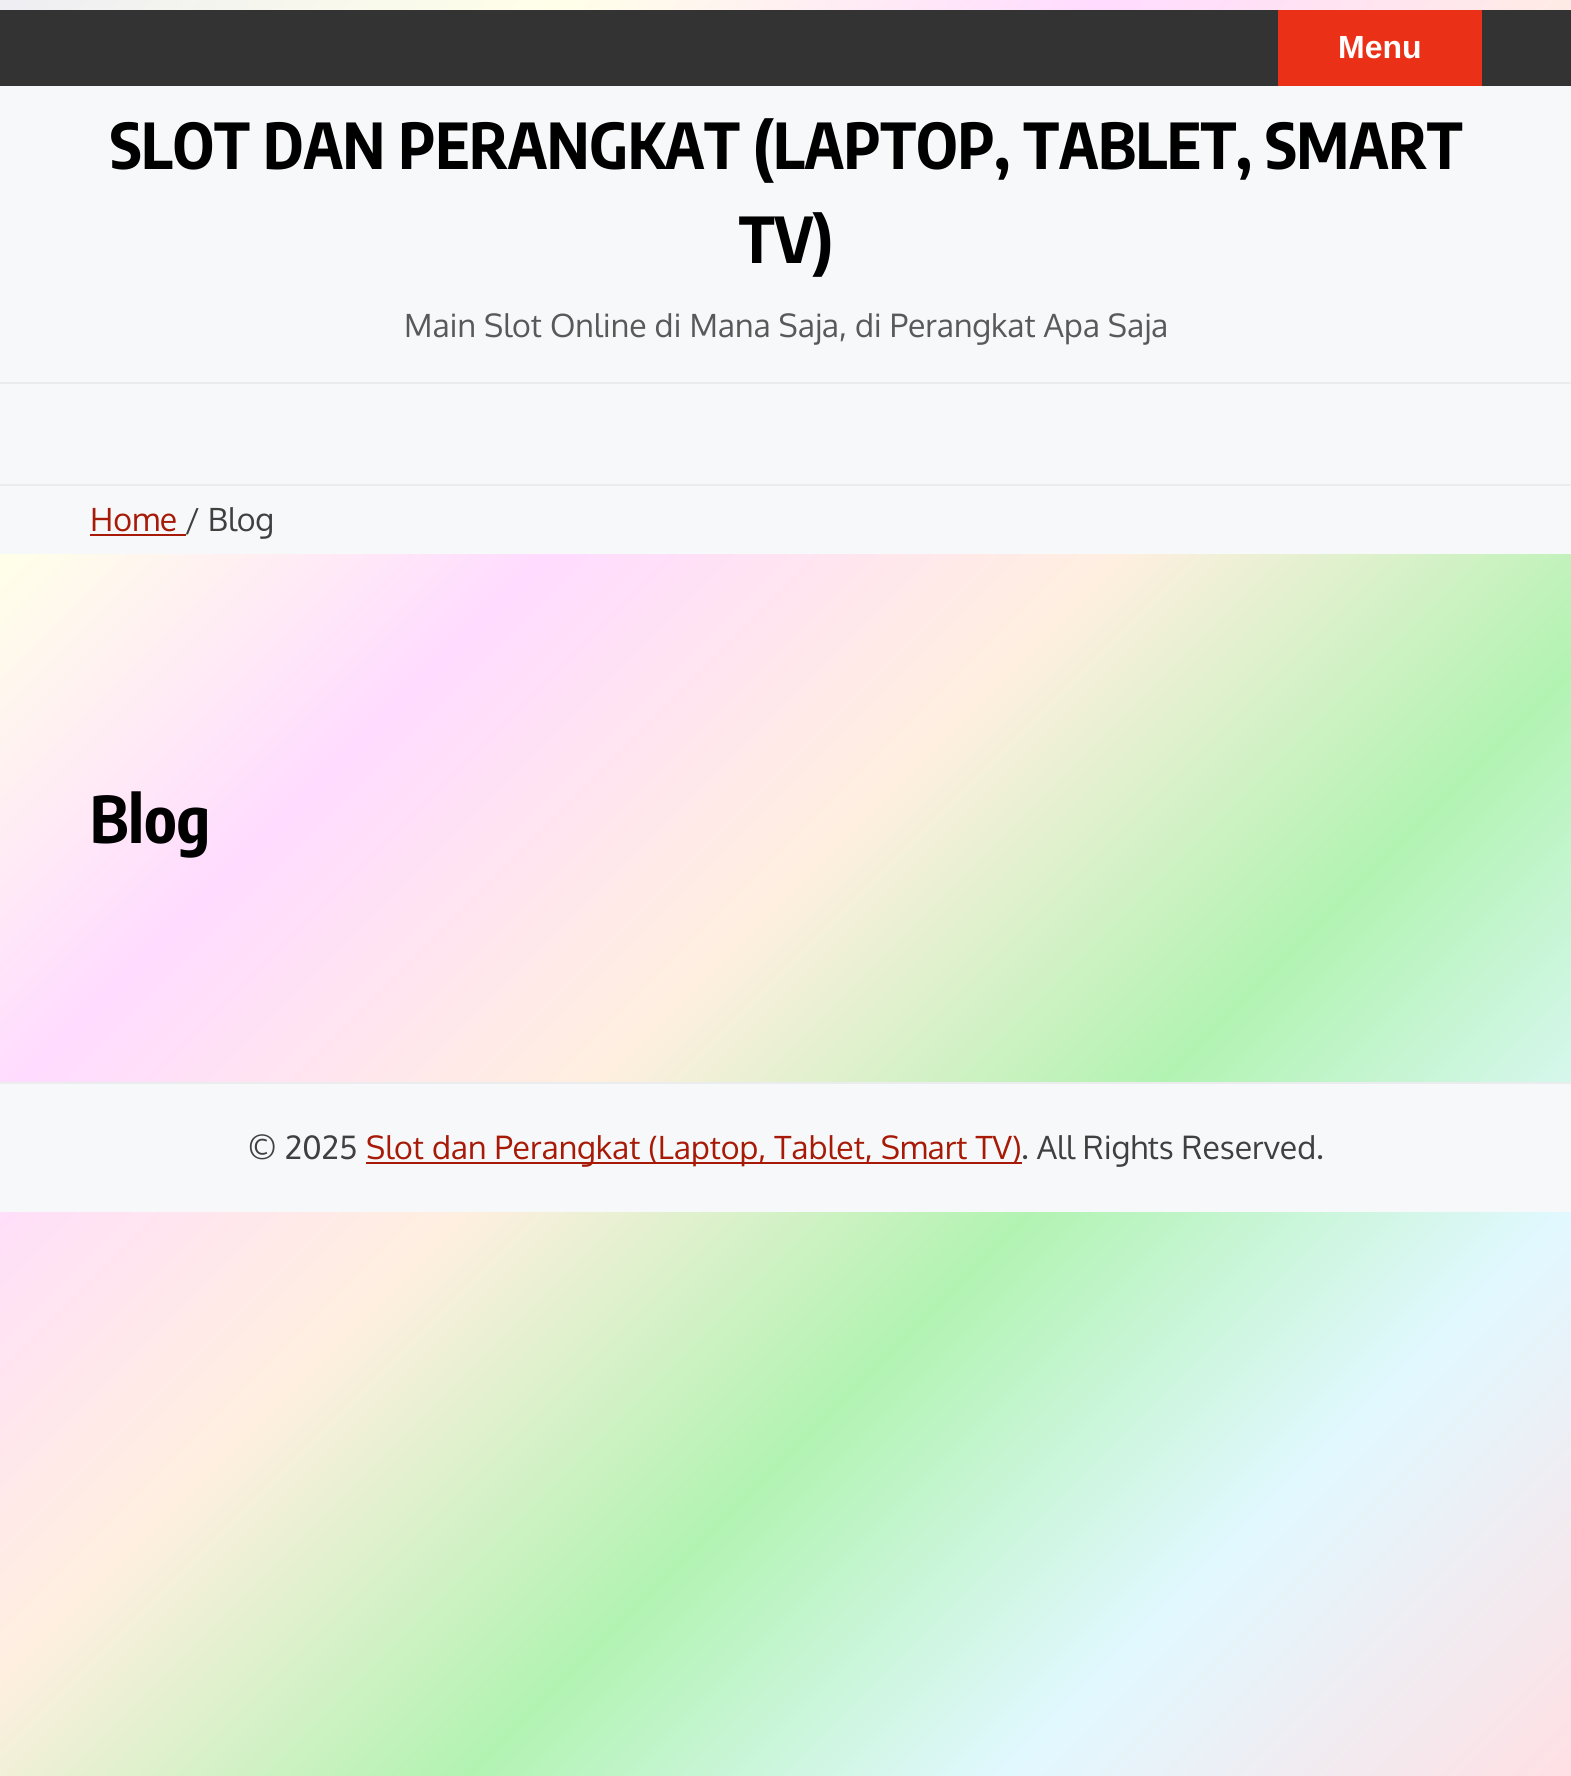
#include <cairo.h>
#include <math.h>
#include <stddef.h>

static cairo_t *ctx;

static void use_color(int r, int g, int b) {
    cairo_set_source_rgb(ctx, r / 255.0, g / 255.0, b / 255.0);
}

int main(void) {
    cairo_surface_t *surface = cairo_image_surface_create(CAIRO_FORMAT_RGB24, 1571, 1776);
    ctx = cairo_create(surface);
    cairo_font_options_t *options = cairo_font_options_create();
    cairo_font_options_set_hint_metrics(options, CAIRO_HINT_METRICS_OFF);
    cairo_font_options_set_hint_style(options, CAIRO_HINT_STYLE_NONE);
    cairo_set_font_options(ctx, options);
    cairo_set_miter_limit(ctx, 4);
    cairo_pattern_t *gradient;
    use_color(255, 255, 255);
    cairo_paint(ctx);
    gradient = cairo_pattern_create_linear(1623, 1725, -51, 51);
    cairo_pattern_add_color_stop_rgba(gradient, 0, 1, 0.878, 0.894, 1);
    cairo_pattern_add_color_stop_rgba(gradient, 0.17, 0.882, 0.973, 1, 1);
    cairo_pattern_add_color_stop_rgba(gradient, 0.33, 0.698, 0.953, 0.698, 1);
    cairo_pattern_add_color_stop_rgba(gradient, 0.5, 1, 0.937, 0.878, 1);
    cairo_pattern_add_color_stop_rgba(gradient, 0.67, 1, 0.859, 1, 1);
    cairo_pattern_add_color_stop_rgba(gradient, 0.83, 1, 1, 0.914, 1);
    cairo_pattern_add_color_stop_rgba(gradient, 1, 0.933, 0.933, 0.953, 1);
    cairo_set_source(ctx, gradient);
    cairo_pattern_destroy(gradient);
    cairo_rectangle(ctx, 0, 0, 1571, 1776);
    cairo_fill(ctx);
    use_color(247, 248, 249);
    cairo_rectangle(ctx, 0, 86, 1571, 398);
    cairo_fill(ctx);
    use_color(51, 51, 51);
    cairo_rectangle(ctx, 0, 10, 1571, 76);
    cairo_fill(ctx);
    use_color(234, 49, 24);
    cairo_rectangle(ctx, 1278, 10, 204, 76);
    cairo_fill(ctx);
    cairo_select_font_face(ctx, "Liberation Sans", CAIRO_FONT_SLANT_NORMAL, CAIRO_FONT_WEIGHT_BOLD);
    cairo_set_font_size(ctx, 32);
    use_color(255, 255, 255);
    cairo_move_to(ctx, 1338, 58);
    cairo_show_text(ctx, "Menu");
    use_color(234, 236, 238);
    cairo_rectangle(ctx, 0, 382, 1571, 2);
    cairo_fill(ctx);
    cairo_select_font_face(ctx, "Encode Sans Condensed", CAIRO_FONT_SLANT_NORMAL, CAIRO_FONT_WEIGHT_BOLD);
    cairo_set_font_size(ctx, 62.9);
    use_color(0, 0, 0);
    cairo_move_to(ctx, 110, 169);
    cairo_show_text(ctx, "SLOT DAN PERANGKAT (LAPTOP, TABLET, SMART");
    cairo_move_to(ctx, 739, 263);
    cairo_show_text(ctx, "TV)");
    cairo_select_font_face(ctx, "Oxygen", CAIRO_FONT_SLANT_NORMAL, CAIRO_FONT_WEIGHT_NORMAL);
    cairo_set_font_size(ctx, 32);
    use_color(89, 89, 89);
    cairo_move_to(ctx, 404, 337);
    cairo_show_text(ctx, "Main Slot Online di Mana Saja, di Perangkat Apa Saja");
    use_color(247, 248, 249);
    cairo_rectangle(ctx, 0, 486, 1571, 68);
    cairo_fill(ctx);
    use_color(234, 236, 238);
    cairo_rectangle(ctx, 0, 484, 1571, 2);
    cairo_fill(ctx);
    use_color(166, 26, 7);
    cairo_move_to(ctx, 90, 531);
    cairo_show_text(ctx, "Home");
    cairo_rectangle(ctx, 90, 534, 96, 2);
    cairo_fill(ctx);
    use_color(64, 64, 64);
    cairo_move_to(ctx, 185, 531);
    cairo_show_text(ctx, "/ Blog");
    cairo_select_font_face(ctx, "Encode Sans Condensed", CAIRO_FONT_SLANT_NORMAL, CAIRO_FONT_WEIGHT_BOLD);
    cairo_set_font_size(ctx, 64);
    use_color(0, 0, 0);
    cairo_move_to(ctx, 90, 843);
    cairo_show_text(ctx, "Blog");
    use_color(247, 248, 249);
    cairo_rectangle(ctx, 0, 1084, 1571, 128);
    cairo_fill(ctx);
    use_color(234, 236, 238);
    cairo_rectangle(ctx, 0, 1082, 1571, 2);
    cairo_fill(ctx);
    cairo_select_font_face(ctx, "Oxygen", CAIRO_FONT_SLANT_NORMAL, CAIRO_FONT_WEIGHT_NORMAL);
    cairo_set_font_size(ctx, 32);
    use_color(64, 64, 64);
    cairo_move_to(ctx, 248, 1159);
    cairo_show_text(ctx, "© 2025");
    use_color(166, 26, 7);
    cairo_rectangle(ctx, 366, 1162, 656, 2);
    cairo_fill(ctx);
    cairo_move_to(ctx, 366, 1159);
    cairo_show_text(ctx, "Slot dan Perangkat (Laptop, Tablet, Smart TV)");
    use_color(64, 64, 64);
    cairo_move_to(ctx, 1021, 1159);
    cairo_show_text(ctx, ". All Rights Reserved.");
    cairo_surface_write_to_png(surface, "result.png");
    cairo_font_options_destroy(options);
    cairo_destroy(ctx);
    cairo_surface_destroy(surface);
    return 0;
}
